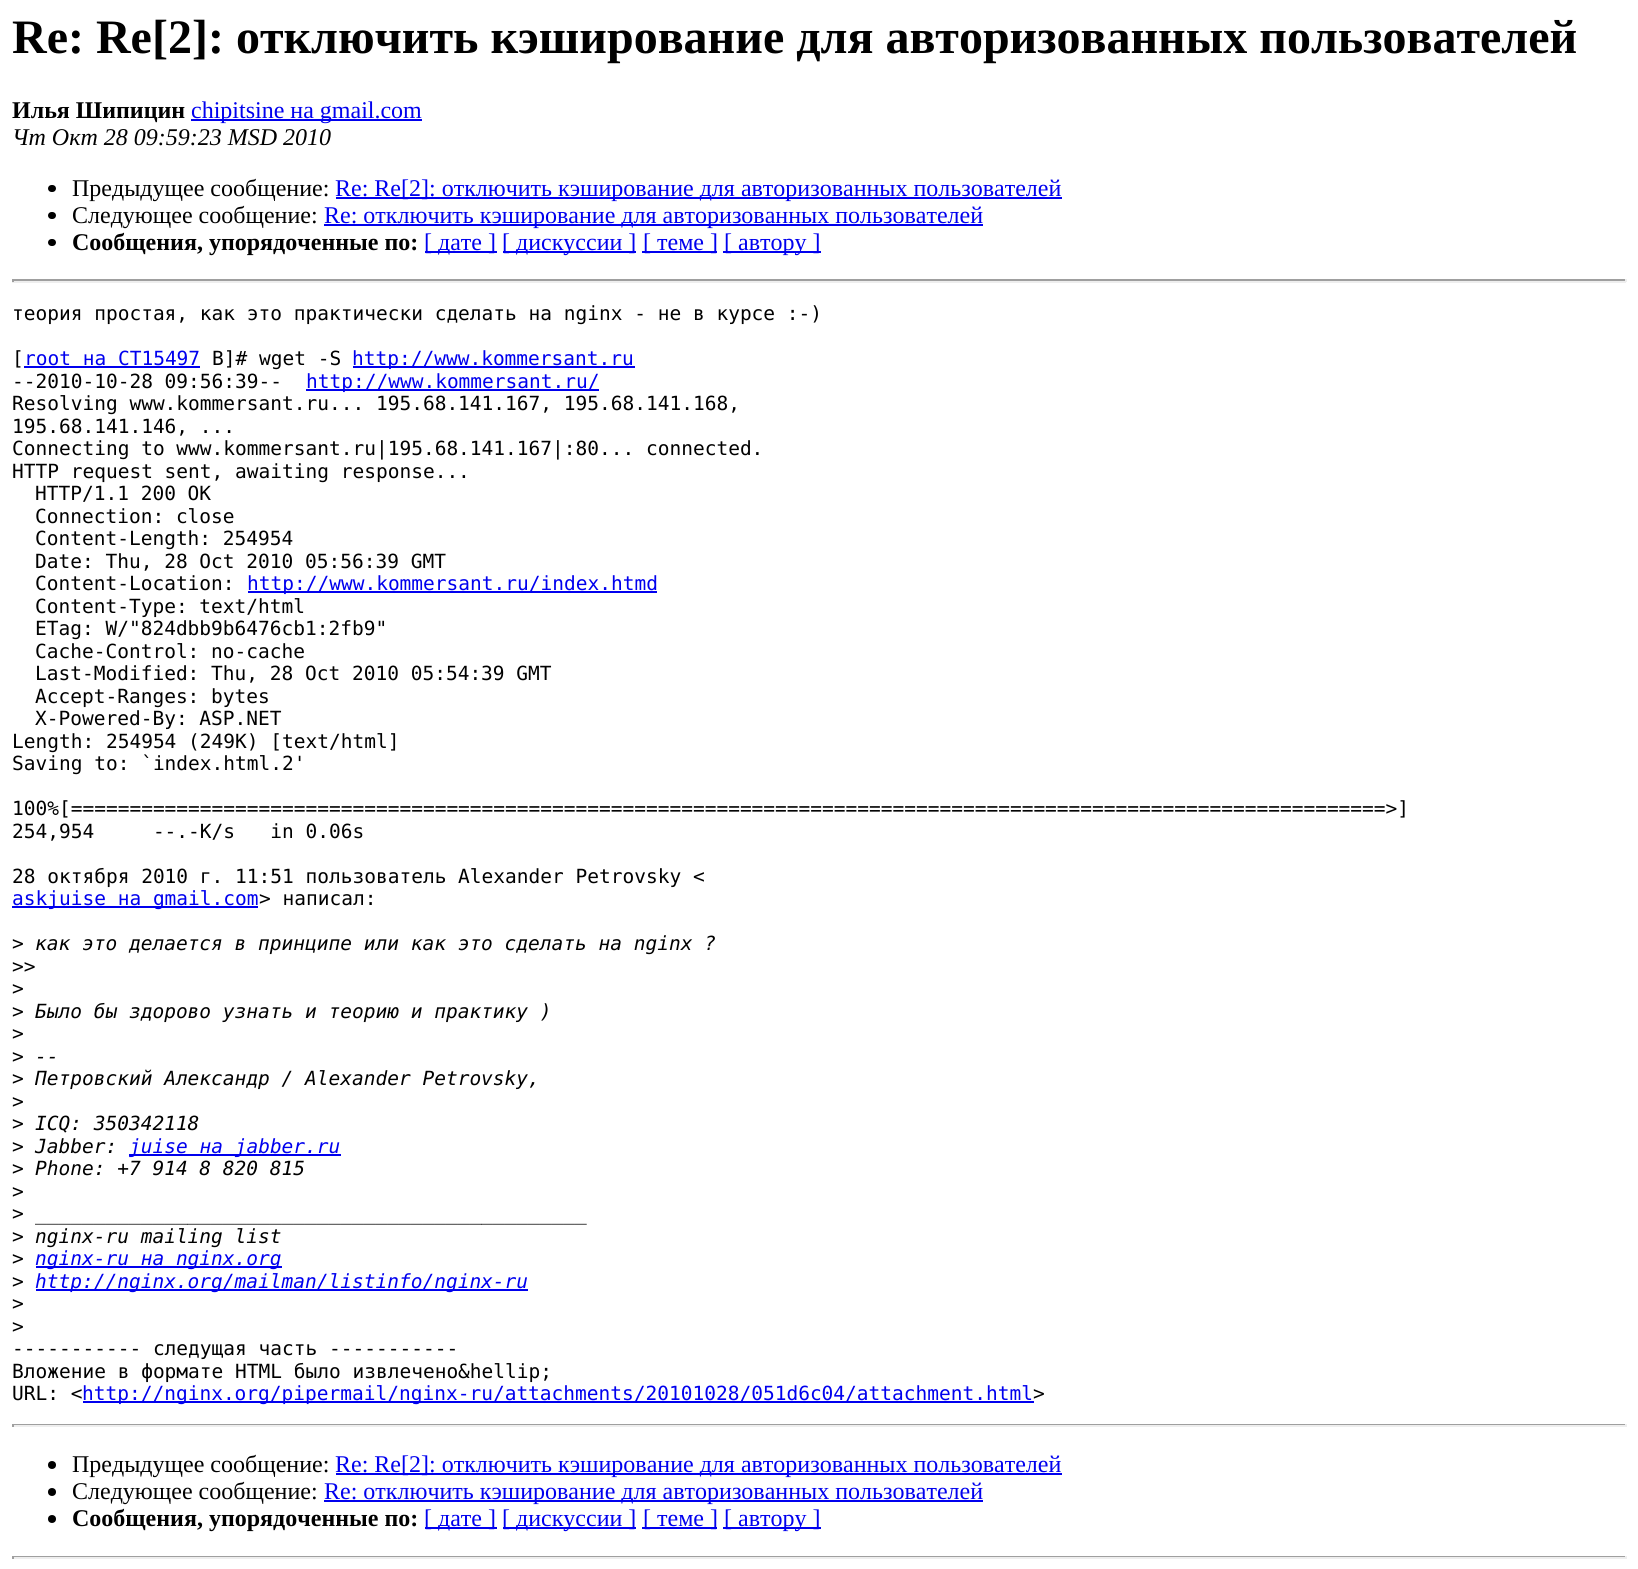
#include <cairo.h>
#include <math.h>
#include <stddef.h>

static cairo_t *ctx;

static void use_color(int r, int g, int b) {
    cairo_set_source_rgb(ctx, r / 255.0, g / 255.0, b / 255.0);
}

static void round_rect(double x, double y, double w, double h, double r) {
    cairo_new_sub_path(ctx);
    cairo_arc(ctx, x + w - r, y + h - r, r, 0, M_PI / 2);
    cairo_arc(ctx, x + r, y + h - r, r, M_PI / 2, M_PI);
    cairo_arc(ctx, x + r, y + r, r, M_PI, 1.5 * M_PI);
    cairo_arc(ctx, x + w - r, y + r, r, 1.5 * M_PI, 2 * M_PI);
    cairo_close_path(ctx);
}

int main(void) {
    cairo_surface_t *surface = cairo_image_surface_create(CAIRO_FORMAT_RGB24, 1638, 1569);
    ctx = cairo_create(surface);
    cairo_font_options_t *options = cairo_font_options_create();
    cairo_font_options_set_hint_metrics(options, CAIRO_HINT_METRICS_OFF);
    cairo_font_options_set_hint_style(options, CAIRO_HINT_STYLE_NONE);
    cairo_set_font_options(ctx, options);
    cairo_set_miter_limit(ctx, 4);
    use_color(255, 255, 255);
    cairo_paint(ctx);
    cairo_select_font_face(ctx, "Liberation Serif", CAIRO_FONT_SLANT_NORMAL, CAIRO_FONT_WEIGHT_BOLD);
    cairo_set_font_size(ctx, 48);
    use_color(0, 0, 0);
    cairo_move_to(ctx, 12, 53);
    cairo_show_text(ctx, "Re: Re[2]: отключить кэширование для авторизованных пользователей");
    cairo_set_font_size(ctx, 24);
    cairo_move_to(ctx, 12, 118);
    cairo_show_text(ctx, "Илья Шипицин");
    use_color(0, 0, 238);
    cairo_rectangle(ctx, 191, 119, 231, 2);
    cairo_fill(ctx);
    cairo_select_font_face(ctx, "Liberation Serif", CAIRO_FONT_SLANT_NORMAL, CAIRO_FONT_WEIGHT_NORMAL);
    cairo_move_to(ctx, 191, 118);
    cairo_show_text(ctx, "chipitsine на gmail.com");
    cairo_select_font_face(ctx, "Liberation Serif", CAIRO_FONT_SLANT_ITALIC, CAIRO_FONT_WEIGHT_NORMAL);
    use_color(0, 0, 0);
    cairo_move_to(ctx, 12, 145);
    cairo_show_text(ctx, "Чт Окт 28 09:59:23 MSD 2010");
    round_rect(48, 185, 8, 7, 3.5);
    cairo_fill(ctx);
    cairo_select_font_face(ctx, "Liberation Serif", CAIRO_FONT_SLANT_NORMAL, CAIRO_FONT_WEIGHT_NORMAL);
    cairo_move_to(ctx, 72, 196);
    cairo_show_text(ctx, "Предыдущее сообщение:");
    use_color(0, 0, 238);
    cairo_rectangle(ctx, 336, 197, 726, 2);
    cairo_fill(ctx);
    cairo_move_to(ctx, 335, 196);
    cairo_show_text(ctx, "Re: Re[2]: отключить кэширование для авторизованных пользователей");
    use_color(0, 0, 0);
    round_rect(48, 212, 8, 7, 3.5);
    cairo_fill(ctx);
    cairo_move_to(ctx, 72, 223);
    cairo_show_text(ctx, "Следующее сообщение:");
    use_color(0, 0, 238);
    cairo_rectangle(ctx, 324, 224, 659, 2);
    cairo_fill(ctx);
    cairo_move_to(ctx, 324, 223);
    cairo_show_text(ctx, "Re: отключить кэширование для авторизованных пользователей");
    use_color(0, 0, 0);
    round_rect(48, 239, 8, 7, 3.5);
    cairo_fill(ctx);
    cairo_select_font_face(ctx, "Liberation Serif", CAIRO_FONT_SLANT_NORMAL, CAIRO_FONT_WEIGHT_BOLD);
    cairo_move_to(ctx, 72, 250);
    cairo_show_text(ctx, "Сообщения, упорядоченные по:");
    use_color(0, 0, 238);
    cairo_rectangle(ctx, 425, 251, 72, 2);
    cairo_fill(ctx);
    cairo_select_font_face(ctx, "Liberation Serif", CAIRO_FONT_SLANT_NORMAL, CAIRO_FONT_WEIGHT_NORMAL);
    cairo_move_to(ctx, 424, 250);
    cairo_show_text(ctx, "[ дате ]");
    cairo_rectangle(ctx, 503, 251, 133, 2);
    cairo_fill(ctx);
    cairo_move_to(ctx, 502, 250);
    cairo_show_text(ctx, "[ дискуссии ]");
    cairo_rectangle(ctx, 642, 251, 75, 2);
    cairo_fill(ctx);
    cairo_move_to(ctx, 643, 250);
    cairo_show_text(ctx, "[ теме ]");
    cairo_rectangle(ctx, 723, 251, 98, 2);
    cairo_fill(ctx);
    cairo_move_to(ctx, 724, 250);
    cairo_show_text(ctx, "[ автору ]");
    use_color(159, 159, 159);
    cairo_rectangle(ctx, 12, 279, 1614, 2);
    cairo_fill(ctx);
    use_color(238, 238, 238);
    cairo_rectangle(ctx, 1625, 279, 2, 3);
    cairo_fill(ctx);
    cairo_rectangle(ctx, 12, 281, 1614, 2);
    cairo_fill(ctx);
    use_color(159, 159, 159);
    cairo_rectangle(ctx, 12, 279, 2, 3);
    cairo_fill(ctx);
    cairo_select_font_face(ctx, "DejaVu Sans Mono", CAIRO_FONT_SLANT_NORMAL, CAIRO_FONT_WEIGHT_NORMAL);
    cairo_set_font_size(ctx, 19.5);
    use_color(0, 0, 0);
    cairo_move_to(ctx, 12, 320);
    cairo_show_text(ctx, "теория простая, как это практически сделать на nginx - не в курсе :-)");
    cairo_move_to(ctx, 12, 365);
    cairo_show_text(ctx, "[");
    use_color(0, 0, 238);
    cairo_move_to(ctx, 24, 365);
    cairo_show_text(ctx, "root на CT15497");
    cairo_rectangle(ctx, 24, 366, 176, 2);
    cairo_fill(ctx);
    use_color(0, 0, 0);
    cairo_move_to(ctx, 212, 365);
    cairo_show_text(ctx, "B]# wget -S");
    use_color(0, 0, 238);
    cairo_rectangle(ctx, 353, 366, 282, 2);
    cairo_fill(ctx);
    cairo_move_to(ctx, 352, 365);
    cairo_show_text(ctx, "http://www.kommersant.ru");
    use_color(0, 0, 0);
    cairo_move_to(ctx, 12, 388);
    cairo_show_text(ctx, "--2010-10-28 09:56:39--");
    use_color(0, 0, 238);
    cairo_rectangle(ctx, 306, 389, 293, 2);
    cairo_fill(ctx);
    cairo_move_to(ctx, 306, 388);
    cairo_show_text(ctx, "http://www.kommersant.ru/");
    use_color(0, 0, 0);
    cairo_move_to(ctx, 12, 410);
    cairo_show_text(ctx, "Resolving www.kommersant.ru... 195.68.141.167, 195.68.141.168,");
    cairo_move_to(ctx, 12, 433);
    cairo_show_text(ctx, "195.68.141.146, ...");
    cairo_move_to(ctx, 12, 455);
    cairo_show_text(ctx, "Connecting to www.kommersant.ru|195.68.141.167|:80... connected.");
    cairo_move_to(ctx, 12, 478);
    cairo_show_text(ctx, "HTTP request sent, awaiting response...");
    cairo_move_to(ctx, 35, 500);
    cairo_show_text(ctx, "HTTP/1.1 200 OK");
    cairo_move_to(ctx, 35, 523);
    cairo_show_text(ctx, "Connection: close");
    cairo_move_to(ctx, 35, 545);
    cairo_show_text(ctx, "Content-Length: 254954");
    cairo_move_to(ctx, 35, 568);
    cairo_show_text(ctx, "Date: Thu, 28 Oct 2010 05:56:39 GMT");
    cairo_move_to(ctx, 35, 590);
    cairo_show_text(ctx, "Content-Location:");
    use_color(0, 0, 238);
    cairo_rectangle(ctx, 248, 591, 409, 2);
    cairo_fill(ctx);
    cairo_move_to(ctx, 247, 590);
    cairo_show_text(ctx, "http://www.kommersant.ru/index.htmd");
    use_color(0, 0, 0);
    cairo_move_to(ctx, 35, 613);
    cairo_show_text(ctx, "Content-Type: text/html");
    cairo_move_to(ctx, 35, 635);
    cairo_show_text(ctx, "ETag: W/\"824dbb9b6476cb1:2fb9\"");
    cairo_move_to(ctx, 35, 658);
    cairo_show_text(ctx, "Cache-Control: no-cache");
    cairo_move_to(ctx, 35, 680);
    cairo_show_text(ctx, "Last-Modified: Thu, 28 Oct 2010 05:54:39 GMT");
    cairo_move_to(ctx, 35, 703);
    cairo_show_text(ctx, "Accept-Ranges: bytes");
    cairo_move_to(ctx, 35, 725);
    cairo_show_text(ctx, "X-Powered-By: ASP.NET");
    cairo_move_to(ctx, 12, 748);
    cairo_show_text(ctx, "Length: 254954 (249K) [text/html]");
    cairo_move_to(ctx, 12, 770);
    cairo_show_text(ctx, "Saving to: `index.html.2'");
    cairo_move_to(ctx, 12, 815);
    cairo_show_text(ctx, "100%[================================================================================================================>]");
    cairo_move_to(ctx, 12, 838);
    cairo_show_text(ctx, "254,954     --.-K/s   in 0.06s");
    cairo_move_to(ctx, 12, 883);
    cairo_show_text(ctx, "28 октября 2010 г. 11:51 пользователь Alexander Petrovsky <");
    use_color(0, 0, 238);
    cairo_rectangle(ctx, 12, 906, 246, 2);
    cairo_fill(ctx);
    cairo_move_to(ctx, 12, 905);
    cairo_show_text(ctx, "askjuise на gmail.com");
    use_color(0, 0, 0);
    cairo_move_to(ctx, 259, 905);
    cairo_show_text(ctx, "> написал:");
    cairo_move_to(ctx, 12, 950);
    cairo_show_text(ctx, ">");
    cairo_select_font_face(ctx, "DejaVu Sans Mono", CAIRO_FONT_SLANT_ITALIC, CAIRO_FONT_WEIGHT_NORMAL);
    cairo_move_to(ctx, 35, 950);
    cairo_show_text(ctx, "как это делается в принципе или как это сделать на nginx ?");
    cairo_select_font_face(ctx, "DejaVu Sans Mono", CAIRO_FONT_SLANT_NORMAL, CAIRO_FONT_WEIGHT_NORMAL);
    cairo_move_to(ctx, 12, 973);
    cairo_show_text(ctx, ">>");
    cairo_move_to(ctx, 12, 995);
    cairo_show_text(ctx, ">");
    cairo_move_to(ctx, 12, 1018);
    cairo_show_text(ctx, ">");
    cairo_select_font_face(ctx, "DejaVu Sans Mono", CAIRO_FONT_SLANT_ITALIC, CAIRO_FONT_WEIGHT_NORMAL);
    cairo_move_to(ctx, 35, 1018);
    cairo_show_text(ctx, "Было бы здорово узнать и теорию и практику )");
    cairo_select_font_face(ctx, "DejaVu Sans Mono", CAIRO_FONT_SLANT_NORMAL, CAIRO_FONT_WEIGHT_NORMAL);
    cairo_move_to(ctx, 12, 1040);
    cairo_show_text(ctx, ">");
    cairo_move_to(ctx, 12, 1063);
    cairo_show_text(ctx, ">");
    cairo_select_font_face(ctx, "DejaVu Sans Mono", CAIRO_FONT_SLANT_ITALIC, CAIRO_FONT_WEIGHT_NORMAL);
    cairo_move_to(ctx, 35, 1063);
    cairo_show_text(ctx, "--");
    cairo_select_font_face(ctx, "DejaVu Sans Mono", CAIRO_FONT_SLANT_NORMAL, CAIRO_FONT_WEIGHT_NORMAL);
    cairo_move_to(ctx, 12, 1085);
    cairo_show_text(ctx, ">");
    cairo_select_font_face(ctx, "DejaVu Sans Mono", CAIRO_FONT_SLANT_ITALIC, CAIRO_FONT_WEIGHT_NORMAL);
    cairo_move_to(ctx, 35, 1085);
    cairo_show_text(ctx, "Петровский Александр / Alexander Petrovsky,");
    cairo_select_font_face(ctx, "DejaVu Sans Mono", CAIRO_FONT_SLANT_NORMAL, CAIRO_FONT_WEIGHT_NORMAL);
    cairo_move_to(ctx, 12, 1108);
    cairo_show_text(ctx, ">");
    cairo_move_to(ctx, 12, 1130);
    cairo_show_text(ctx, ">");
    cairo_select_font_face(ctx, "DejaVu Sans Mono", CAIRO_FONT_SLANT_ITALIC, CAIRO_FONT_WEIGHT_NORMAL);
    cairo_move_to(ctx, 35, 1130);
    cairo_show_text(ctx, "ICQ: 350342118");
    cairo_select_font_face(ctx, "DejaVu Sans Mono", CAIRO_FONT_SLANT_NORMAL, CAIRO_FONT_WEIGHT_NORMAL);
    cairo_move_to(ctx, 12, 1153);
    cairo_show_text(ctx, ">");
    cairo_select_font_face(ctx, "DejaVu Sans Mono", CAIRO_FONT_SLANT_ITALIC, CAIRO_FONT_WEIGHT_NORMAL);
    cairo_move_to(ctx, 35, 1153);
    cairo_show_text(ctx, "Jabber:");
    use_color(0, 0, 238);
    cairo_rectangle(ctx, 129, 1154, 212, 2);
    cairo_fill(ctx);
    cairo_move_to(ctx, 129, 1153);
    cairo_show_text(ctx, "juise на jabber.ru");
    cairo_select_font_face(ctx, "DejaVu Sans Mono", CAIRO_FONT_SLANT_NORMAL, CAIRO_FONT_WEIGHT_NORMAL);
    use_color(0, 0, 0);
    cairo_move_to(ctx, 12, 1175);
    cairo_show_text(ctx, ">");
    cairo_select_font_face(ctx, "DejaVu Sans Mono", CAIRO_FONT_SLANT_ITALIC, CAIRO_FONT_WEIGHT_NORMAL);
    cairo_move_to(ctx, 35, 1175);
    cairo_show_text(ctx, "Phone: +7 914 8 820 815");
    cairo_select_font_face(ctx, "DejaVu Sans Mono", CAIRO_FONT_SLANT_NORMAL, CAIRO_FONT_WEIGHT_NORMAL);
    cairo_move_to(ctx, 12, 1198);
    cairo_show_text(ctx, ">");
    cairo_move_to(ctx, 12, 1220);
    cairo_show_text(ctx, ">");
    cairo_select_font_face(ctx, "DejaVu Sans Mono", CAIRO_FONT_SLANT_ITALIC, CAIRO_FONT_WEIGHT_NORMAL);
    cairo_move_to(ctx, 35, 1220);
    cairo_show_text(ctx, "_______________________________________________");
    cairo_select_font_face(ctx, "DejaVu Sans Mono", CAIRO_FONT_SLANT_NORMAL, CAIRO_FONT_WEIGHT_NORMAL);
    cairo_move_to(ctx, 12, 1243);
    cairo_show_text(ctx, ">");
    cairo_select_font_face(ctx, "DejaVu Sans Mono", CAIRO_FONT_SLANT_ITALIC, CAIRO_FONT_WEIGHT_NORMAL);
    cairo_move_to(ctx, 35, 1243);
    cairo_show_text(ctx, "nginx-ru mailing list");
    cairo_select_font_face(ctx, "DejaVu Sans Mono", CAIRO_FONT_SLANT_NORMAL, CAIRO_FONT_WEIGHT_NORMAL);
    cairo_move_to(ctx, 12, 1265);
    cairo_show_text(ctx, ">");
    use_color(0, 0, 238);
    cairo_rectangle(ctx, 36, 1266, 246, 2);
    cairo_fill(ctx);
    cairo_select_font_face(ctx, "DejaVu Sans Mono", CAIRO_FONT_SLANT_ITALIC, CAIRO_FONT_WEIGHT_NORMAL);
    cairo_move_to(ctx, 35, 1265);
    cairo_show_text(ctx, "nginx-ru на nginx.org");
    cairo_select_font_face(ctx, "DejaVu Sans Mono", CAIRO_FONT_SLANT_NORMAL, CAIRO_FONT_WEIGHT_NORMAL);
    use_color(0, 0, 0);
    cairo_move_to(ctx, 12, 1288);
    cairo_show_text(ctx, ">");
    use_color(0, 0, 238);
    cairo_rectangle(ctx, 36, 1289, 492, 2);
    cairo_fill(ctx);
    cairo_select_font_face(ctx, "DejaVu Sans Mono", CAIRO_FONT_SLANT_ITALIC, CAIRO_FONT_WEIGHT_NORMAL);
    cairo_move_to(ctx, 35, 1288);
    cairo_show_text(ctx, "http://nginx.org/mailman/listinfo/nginx-ru");
    cairo_select_font_face(ctx, "DejaVu Sans Mono", CAIRO_FONT_SLANT_NORMAL, CAIRO_FONT_WEIGHT_NORMAL);
    use_color(0, 0, 0);
    cairo_move_to(ctx, 12, 1310);
    cairo_show_text(ctx, ">");
    cairo_move_to(ctx, 12, 1333);
    cairo_show_text(ctx, ">");
    cairo_move_to(ctx, 12, 1355);
    cairo_show_text(ctx, "----------- следущая часть -----------");
    cairo_move_to(ctx, 12, 1378);
    cairo_show_text(ctx, "Вложение в формате HTML было извлечено&hellip;");
    cairo_move_to(ctx, 12, 1400);
    cairo_show_text(ctx, "URL: <");
    use_color(0, 0, 238);
    cairo_rectangle(ctx, 83, 1401, 951, 2);
    cairo_fill(ctx);
    cairo_move_to(ctx, 82, 1400);
    cairo_show_text(ctx, "http://nginx.org/pipermail/nginx-ru/attachments/20101028/051d6c04/attachment.html");
    use_color(0, 0, 0);
    cairo_move_to(ctx, 1033, 1400);
    cairo_show_text(ctx, ">");
    use_color(159, 159, 159);
    cairo_rectangle(ctx, 12, 1424, 1614, 1);
    cairo_fill(ctx);
    use_color(238, 238, 238);
    cairo_rectangle(ctx, 1625, 1424, 2, 3);
    cairo_fill(ctx);
    cairo_rectangle(ctx, 12, 1425, 1614, 2);
    cairo_fill(ctx);
    use_color(159, 159, 159);
    cairo_rectangle(ctx, 12, 1424, 2, 3);
    cairo_fill(ctx);
    use_color(0, 0, 0);
    cairo_arc(ctx, 52, 1465, 4, 0, 2 * M_PI);
    cairo_fill(ctx);
    cairo_select_font_face(ctx, "Liberation Serif", CAIRO_FONT_SLANT_NORMAL, CAIRO_FONT_WEIGHT_NORMAL);
    cairo_set_font_size(ctx, 24);
    cairo_move_to(ctx, 72, 1472);
    cairo_show_text(ctx, "Предыдущее сообщение:");
    use_color(0, 0, 238);
    cairo_rectangle(ctx, 336, 1473, 726, 2);
    cairo_fill(ctx);
    cairo_move_to(ctx, 335, 1472);
    cairo_show_text(ctx, "Re: Re[2]: отключить кэширование для авторизованных пользователей");
    use_color(0, 0, 0);
    cairo_new_path(ctx);
    cairo_arc(ctx, 52, 1492, 4, 0, 2 * M_PI);
    cairo_fill(ctx);
    cairo_move_to(ctx, 72, 1499);
    cairo_show_text(ctx, "Следующее сообщение:");
    use_color(0, 0, 238);
    cairo_rectangle(ctx, 324, 1500, 659, 2);
    cairo_fill(ctx);
    cairo_move_to(ctx, 324, 1499);
    cairo_show_text(ctx, "Re: отключить кэширование для авторизованных пользователей");
    use_color(0, 0, 0);
    cairo_new_path(ctx);
    cairo_arc(ctx, 52, 1519, 4, 0, 2 * M_PI);
    cairo_fill(ctx);
    cairo_select_font_face(ctx, "Liberation Serif", CAIRO_FONT_SLANT_NORMAL, CAIRO_FONT_WEIGHT_BOLD);
    cairo_move_to(ctx, 72, 1526);
    cairo_show_text(ctx, "Сообщения, упорядоченные по:");
    use_color(0, 0, 238);
    cairo_rectangle(ctx, 425, 1527, 72, 2);
    cairo_fill(ctx);
    cairo_select_font_face(ctx, "Liberation Serif", CAIRO_FONT_SLANT_NORMAL, CAIRO_FONT_WEIGHT_NORMAL);
    cairo_move_to(ctx, 424, 1526);
    cairo_show_text(ctx, "[ дате ]");
    cairo_rectangle(ctx, 503, 1527, 133, 2);
    cairo_fill(ctx);
    cairo_move_to(ctx, 502, 1526);
    cairo_show_text(ctx, "[ дискуссии ]");
    cairo_rectangle(ctx, 642, 1527, 75, 2);
    cairo_fill(ctx);
    cairo_move_to(ctx, 643, 1526);
    cairo_show_text(ctx, "[ теме ]");
    cairo_rectangle(ctx, 723, 1527, 98, 2);
    cairo_fill(ctx);
    cairo_move_to(ctx, 724, 1526);
    cairo_show_text(ctx, "[ автору ]");
    use_color(159, 159, 159);
    cairo_rectangle(ctx, 12, 1556, 1614, 1);
    cairo_fill(ctx);
    use_color(238, 238, 238);
    cairo_rectangle(ctx, 1625, 1556, 2, 3);
    cairo_fill(ctx);
    cairo_rectangle(ctx, 12, 1557, 1614, 2);
    cairo_fill(ctx);
    use_color(159, 159, 159);
    cairo_rectangle(ctx, 12, 1556, 2, 3);
    cairo_fill(ctx);
    cairo_surface_write_to_png(surface, "result.png");
    cairo_font_options_destroy(options);
    cairo_destroy(ctx);
    cairo_surface_destroy(surface);
    return 0;
}
